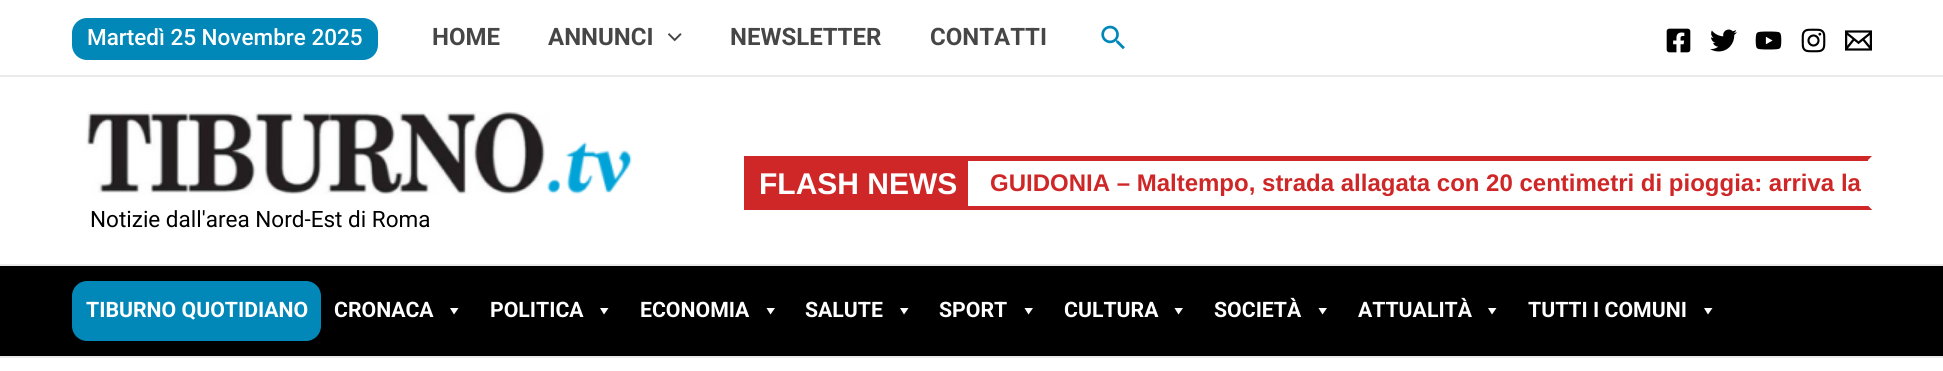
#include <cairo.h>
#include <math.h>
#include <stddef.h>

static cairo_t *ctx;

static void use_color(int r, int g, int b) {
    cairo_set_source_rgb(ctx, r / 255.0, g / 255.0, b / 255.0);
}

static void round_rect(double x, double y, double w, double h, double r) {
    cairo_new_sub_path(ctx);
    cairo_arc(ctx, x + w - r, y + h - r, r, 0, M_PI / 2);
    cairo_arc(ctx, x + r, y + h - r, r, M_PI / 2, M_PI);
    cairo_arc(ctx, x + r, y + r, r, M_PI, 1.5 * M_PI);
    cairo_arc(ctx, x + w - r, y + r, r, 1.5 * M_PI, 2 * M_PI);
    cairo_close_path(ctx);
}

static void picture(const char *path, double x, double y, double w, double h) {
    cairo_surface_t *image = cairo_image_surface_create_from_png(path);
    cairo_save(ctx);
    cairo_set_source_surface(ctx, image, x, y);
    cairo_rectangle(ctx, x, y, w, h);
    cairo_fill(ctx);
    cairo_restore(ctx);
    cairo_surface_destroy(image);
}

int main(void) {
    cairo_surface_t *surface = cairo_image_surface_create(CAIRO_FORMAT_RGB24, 1943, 371);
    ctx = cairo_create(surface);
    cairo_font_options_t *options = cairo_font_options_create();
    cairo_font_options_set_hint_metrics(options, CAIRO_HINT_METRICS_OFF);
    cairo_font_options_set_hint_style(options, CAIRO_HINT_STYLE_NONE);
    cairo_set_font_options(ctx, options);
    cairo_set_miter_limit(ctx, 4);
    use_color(255, 255, 255);
    cairo_paint(ctx);
    use_color(234, 234, 234);
    cairo_rectangle(ctx, 0, 75, 1943, 2);
    cairo_fill(ctx);
    use_color(1, 136, 184);
    round_rect(72, 18, 306, 42, 15);
    cairo_fill(ctx);
    cairo_select_font_face(ctx, "Roboto Medium", CAIRO_FONT_SLANT_NORMAL, CAIRO_FONT_WEIGHT_NORMAL);
    cairo_set_font_size(ctx, 22.5);
    use_color(255, 255, 255);
    cairo_move_to(ctx, 87, 45);
    cairo_show_text(ctx, "Martedì 25 Novembre 2025");
    cairo_select_font_face(ctx, "Roboto", CAIRO_FONT_SLANT_NORMAL, CAIRO_FONT_WEIGHT_BOLD);
    cairo_set_font_size(ctx, 24);
    use_color(70, 70, 70);
    cairo_move_to(ctx, 432, 45);
    cairo_show_text(ctx, "HOME");
    cairo_move_to(ctx, 548, 45);
    cairo_show_text(ctx, "ANNUNCI");
    picture("img1.png", 668, 33, 14, 9);
    cairo_move_to(ctx, 730, 45);
    cairo_show_text(ctx, "NEWSLETTER");
    cairo_move_to(ctx, 930, 45);
    cairo_show_text(ctx, "CONTATTI");
    picture("img2.png", 1101, 25, 24, 25);
    picture("img3.png", 1666, 28, 25, 25);
    picture("img4.png", 1710, 29, 27, 23);
    picture("img5.png", 1755, 31, 27, 19);
    picture("img6.png", 1801, 28, 25, 25);
    picture("img7.png", 1845, 30, 27, 21);
    use_color(234, 234, 234);
    cairo_rectangle(ctx, 0, 264, 1943, 2);
    cairo_fill(ctx);
    use_color(207, 39, 39);
    cairo_rectangle(ctx, 744, 156, 1128, 54);
    cairo_fill(ctx);
    use_color(255, 255, 255);
    cairo_new_path(ctx);
    cairo_move_to(ctx, 1872, 156);
    cairo_line_to(ctx, 1872, 210);
    cairo_line_to(ctx, 1868, 206);
    cairo_line_to(ctx, 1868, 160);
    cairo_close_path(ctx);
    cairo_fill(ctx);
    use_color(207, 39, 39);
    cairo_new_path(ctx);
    cairo_move_to(ctx, 1872, 210);
    cairo_line_to(ctx, 744, 210);
    cairo_line_to(ctx, 748, 206);
    cairo_line_to(ctx, 1868, 206);
    cairo_close_path(ctx);
    cairo_fill(ctx);
    cairo_select_font_face(ctx, "Liberation Sans", CAIRO_FONT_SLANT_NORMAL, CAIRO_FONT_WEIGHT_BOLD);
    cairo_set_font_size(ctx, 30);
    use_color(255, 255, 255);
    cairo_move_to(ctx, 759, 194);
    cairo_show_text(ctx, "FLASH NEWS");
    cairo_rectangle(ctx, 968, 161, 900, 45);
    cairo_fill(ctx);
    cairo_set_font_size(ctx, 24);
    use_color(207, 39, 39);
    cairo_move_to(ctx, 990, 191);
    cairo_show_text(ctx, "GUIDONIA – Maltempo, strada allagata con 20 centimetri di pioggia: arriva la");
    picture("img8.png", 86, 111, 546, 84);
    cairo_select_font_face(ctx, "Roboto", CAIRO_FONT_SLANT_NORMAL, CAIRO_FONT_WEIGHT_NORMAL);
    cairo_set_font_size(ctx, 22.5);
    use_color(0, 0, 0);
    cairo_move_to(ctx, 90, 227);
    cairo_show_text(ctx, "Notizie dall'area Nord-Est di Roma");
    cairo_rectangle(ctx, 0, 266, 1943, 90);
    cairo_fill(ctx);
    use_color(234, 234, 234);
    cairo_rectangle(ctx, 0, 356, 1943, 2);
    cairo_fill(ctx);
    use_color(1, 136, 184);
    round_rect(72, 281, 249, 60, 15);
    cairo_fill(ctx);
    cairo_select_font_face(ctx, "Roboto", CAIRO_FONT_SLANT_NORMAL, CAIRO_FONT_WEIGHT_BOLD);
    cairo_set_font_size(ctx, 21.25);
    use_color(255, 255, 255);
    cairo_move_to(ctx, 86, 317);
    cairo_show_text(ctx, "TIBURNO QUOTIDIANO");
    cairo_move_to(ctx, 334, 317);
    cairo_show_text(ctx, "CRONACA");
    cairo_new_path(ctx);
    cairo_move_to(ctx, 458.5, 308);
    cairo_line_to(ctx, 454, 314.5);
    cairo_line_to(ctx, 450, 308);
    cairo_close_path(ctx);
    cairo_fill(ctx);
    cairo_move_to(ctx, 490, 317);
    cairo_show_text(ctx, "POLITICA");
    cairo_new_path(ctx);
    cairo_move_to(ctx, 608.5, 308);
    cairo_line_to(ctx, 604, 314.5);
    cairo_line_to(ctx, 600, 308);
    cairo_close_path(ctx);
    cairo_fill(ctx);
    cairo_move_to(ctx, 640, 317);
    cairo_show_text(ctx, "ECONOMIA");
    cairo_new_path(ctx);
    cairo_move_to(ctx, 775, 308);
    cairo_line_to(ctx, 770.5, 314.5);
    cairo_line_to(ctx, 766.5, 308);
    cairo_close_path(ctx);
    cairo_fill(ctx);
    cairo_move_to(ctx, 805, 317);
    cairo_show_text(ctx, "SALUTE");
    cairo_new_path(ctx);
    cairo_move_to(ctx, 908.5, 308);
    cairo_line_to(ctx, 904, 314.5);
    cairo_line_to(ctx, 900, 308);
    cairo_close_path(ctx);
    cairo_fill(ctx);
    cairo_move_to(ctx, 939, 317);
    cairo_show_text(ctx, "SPORT");
    cairo_new_path(ctx);
    cairo_move_to(ctx, 1033, 308);
    cairo_line_to(ctx, 1028.5, 314.5);
    cairo_line_to(ctx, 1024.5, 308);
    cairo_close_path(ctx);
    cairo_fill(ctx);
    cairo_move_to(ctx, 1064, 317);
    cairo_show_text(ctx, "CULTURA");
    cairo_new_path(ctx);
    cairo_move_to(ctx, 1183, 308);
    cairo_line_to(ctx, 1178.5, 314.5);
    cairo_line_to(ctx, 1174.5, 308);
    cairo_close_path(ctx);
    cairo_fill(ctx);
    cairo_move_to(ctx, 1214, 317);
    cairo_show_text(ctx, "SOCIETÀ");
    cairo_new_path(ctx);
    cairo_move_to(ctx, 1327, 308);
    cairo_line_to(ctx, 1322.5, 314.5);
    cairo_line_to(ctx, 1318.5, 308);
    cairo_close_path(ctx);
    cairo_fill(ctx);
    cairo_move_to(ctx, 1358, 317);
    cairo_show_text(ctx, "ATTUALITÀ");
    cairo_new_path(ctx);
    cairo_move_to(ctx, 1496.5, 308);
    cairo_line_to(ctx, 1492, 314.5);
    cairo_line_to(ctx, 1488, 308);
    cairo_close_path(ctx);
    cairo_fill(ctx);
    cairo_move_to(ctx, 1528, 317);
    cairo_show_text(ctx, "TUTTI I COMUNI");
    cairo_new_path(ctx);
    cairo_move_to(ctx, 1712.5, 308);
    cairo_line_to(ctx, 1708, 314.5);
    cairo_line_to(ctx, 1704, 308);
    cairo_close_path(ctx);
    cairo_fill(ctx);
    cairo_surface_write_to_png(surface, "result.png");
    cairo_font_options_destroy(options);
    cairo_destroy(ctx);
    cairo_surface_destroy(surface);
    return 0;
}
